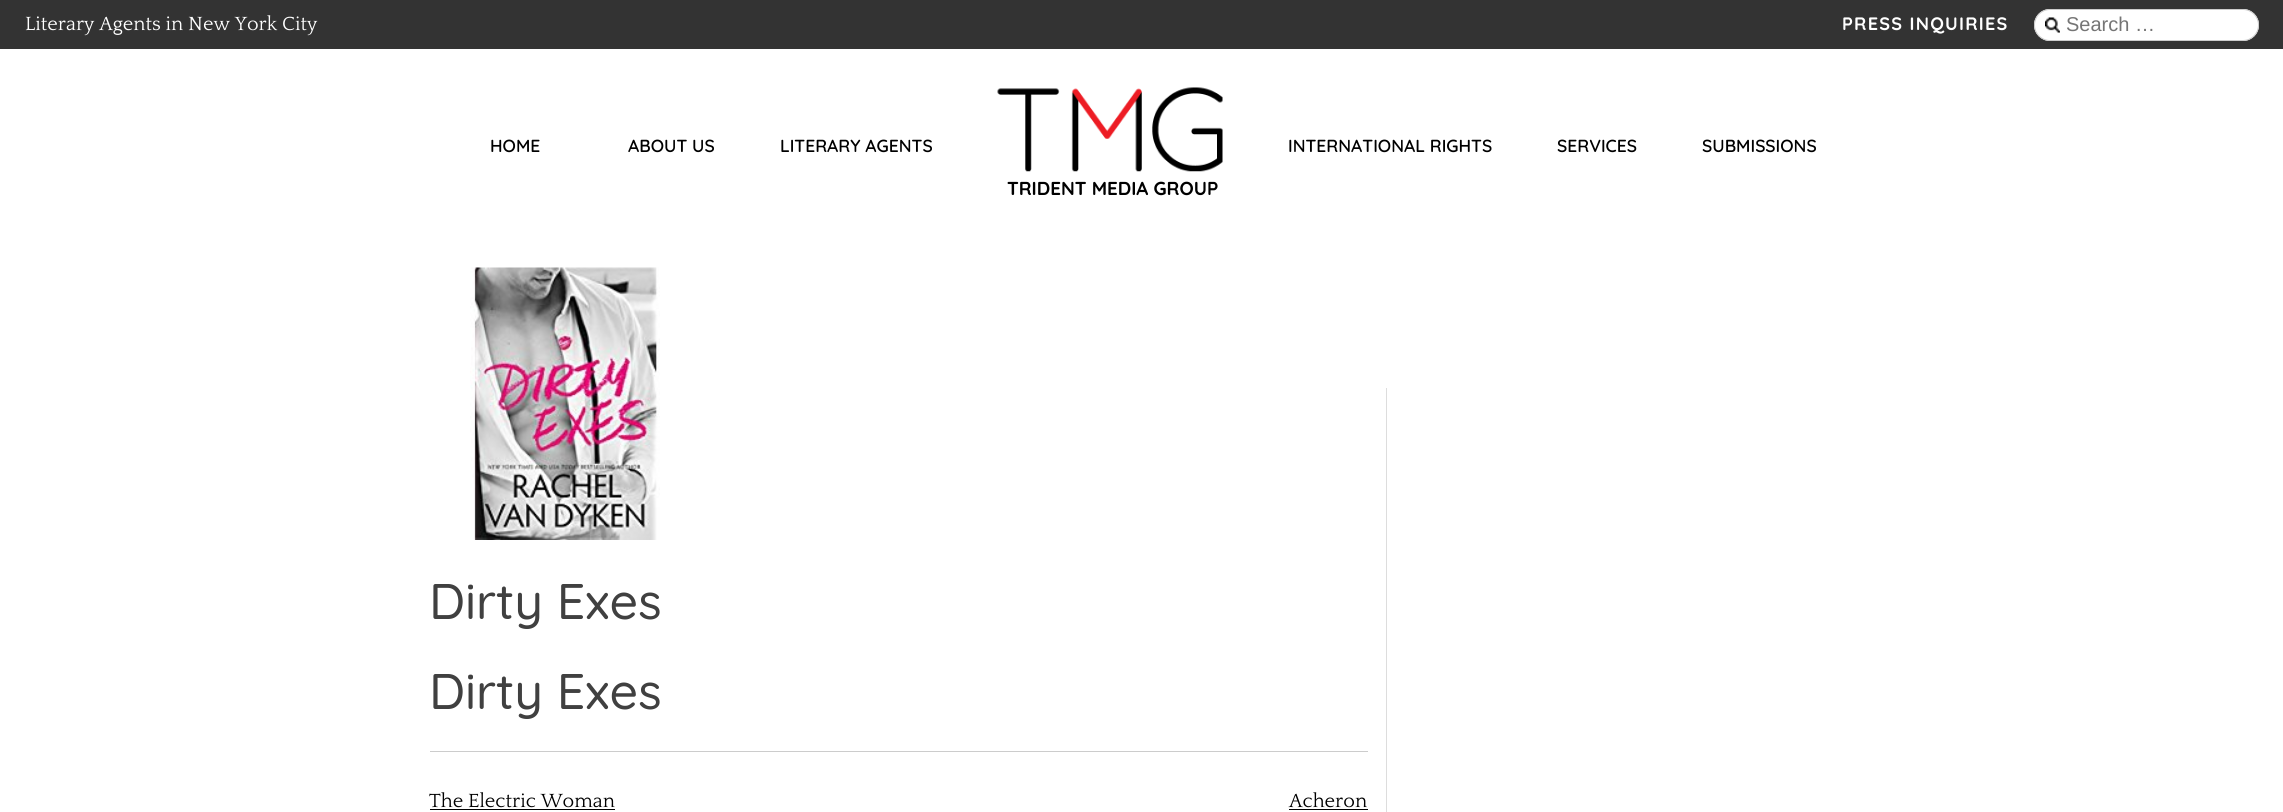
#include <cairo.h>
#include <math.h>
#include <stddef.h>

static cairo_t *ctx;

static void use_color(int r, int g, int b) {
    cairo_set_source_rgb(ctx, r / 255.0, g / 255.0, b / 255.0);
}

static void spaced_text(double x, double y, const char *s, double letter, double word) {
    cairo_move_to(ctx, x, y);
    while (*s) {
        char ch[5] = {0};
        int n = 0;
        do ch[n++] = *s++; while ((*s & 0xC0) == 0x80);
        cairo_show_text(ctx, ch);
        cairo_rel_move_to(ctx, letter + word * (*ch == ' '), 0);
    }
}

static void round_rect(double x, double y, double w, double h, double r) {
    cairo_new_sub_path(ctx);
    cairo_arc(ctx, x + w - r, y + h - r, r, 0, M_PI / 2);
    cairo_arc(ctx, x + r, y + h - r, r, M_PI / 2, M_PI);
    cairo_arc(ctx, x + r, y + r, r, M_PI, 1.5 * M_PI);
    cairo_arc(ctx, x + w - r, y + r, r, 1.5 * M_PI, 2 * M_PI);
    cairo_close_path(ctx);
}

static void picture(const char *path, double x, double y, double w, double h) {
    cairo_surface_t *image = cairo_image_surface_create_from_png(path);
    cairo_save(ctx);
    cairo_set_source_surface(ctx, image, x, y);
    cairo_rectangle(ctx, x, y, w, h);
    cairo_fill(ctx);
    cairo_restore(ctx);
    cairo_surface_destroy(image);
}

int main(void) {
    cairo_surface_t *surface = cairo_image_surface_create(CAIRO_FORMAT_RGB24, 2283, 812);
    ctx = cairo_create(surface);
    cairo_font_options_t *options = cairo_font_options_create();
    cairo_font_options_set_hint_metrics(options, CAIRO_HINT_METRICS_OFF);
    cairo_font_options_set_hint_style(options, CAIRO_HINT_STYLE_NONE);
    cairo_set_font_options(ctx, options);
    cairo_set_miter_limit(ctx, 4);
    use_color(255, 255, 255);
    cairo_paint(ctx);
    use_color(51, 51, 51);
    cairo_rectangle(ctx, 0, 0, 2283, 49);
    cairo_fill(ctx);
    cairo_select_font_face(ctx, "Quattrocento", CAIRO_FONT_SLANT_NORMAL, CAIRO_FONT_WEIGHT_NORMAL);
    cairo_set_font_size(ctx, 20);
    use_color(255, 255, 255);
    cairo_move_to(ctx, 25, 30);
    cairo_show_text(ctx, "Literary Agents in New York City");
    cairo_select_font_face(ctx, "Quicksand", CAIRO_FONT_SLANT_NORMAL, CAIRO_FONT_WEIGHT_BOLD);
    cairo_set_font_size(ctx, 18);
    spaced_text(1842, 30, "PRESS INQUIRIES", 1.25, 0);
    round_rect(2034, 9, 225, 32, 16);
    cairo_fill(ctx);
    picture("img1.png", 2045, 17, 15, 16);
    round_rect(2034.5, 9.5, 224, 31, 15.5);
    use_color(204, 204, 204);
    cairo_set_line_width(ctx, 1);
    cairo_stroke(ctx);
    cairo_select_font_face(ctx, "Liberation Sans", CAIRO_FONT_SLANT_NORMAL, CAIRO_FONT_WEIGHT_NORMAL);
    cairo_set_font_size(ctx, 20);
    use_color(117, 117, 117);
    cairo_move_to(ctx, 2066, 31);
    cairo_show_text(ctx, "Search …");
    cairo_select_font_face(ctx, "Quicksand SemiBold", CAIRO_FONT_SLANT_NORMAL, CAIRO_FONT_WEIGHT_NORMAL);
    cairo_set_font_size(ctx, 17.5);
    use_color(0, 0, 0);
    cairo_move_to(ctx, 490, 152);
    cairo_show_text(ctx, "HOME");
    cairo_move_to(ctx, 628, 152);
    cairo_show_text(ctx, "ABOUT US");
    cairo_move_to(ctx, 780, 152);
    cairo_show_text(ctx, "LITERARY AGENTS");
    cairo_move_to(ctx, 1288, 152);
    cairo_show_text(ctx, "INTERNATIONAL RIGHTS");
    cairo_move_to(ctx, 1557, 152);
    cairo_show_text(ctx, "SERVICES");
    cairo_move_to(ctx, 1702, 152);
    cairo_show_text(ctx, "SUBMISSIONS");
    picture("img2.png", 997, 87, 226, 85);
    cairo_select_font_face(ctx, "Quicksand", CAIRO_FONT_SLANT_NORMAL, CAIRO_FONT_WEIGHT_BOLD);
    cairo_set_font_size(ctx, 18.75);
    cairo_move_to(ctx, 1007, 195);
    cairo_show_text(ctx, "TRIDENT MEDIA GROUP");
    picture("img3.png", 470, 267, 190, 273);
    cairo_select_font_face(ctx, "Quicksand Medium", CAIRO_FONT_SLANT_NORMAL, CAIRO_FONT_WEIGHT_NORMAL);
    cairo_set_font_size(ctx, 50);
    use_color(64, 64, 64);
    cairo_move_to(ctx, 429, 619);
    cairo_show_text(ctx, "Dirty Exes");
    cairo_move_to(ctx, 429, 709);
    cairo_show_text(ctx, "Dirty Exes");
    use_color(204, 204, 204);
    cairo_rectangle(ctx, 430, 751, 938, 1);
    cairo_fill(ctx);
    cairo_select_font_face(ctx, "Quattrocento", CAIRO_FONT_SLANT_NORMAL, CAIRO_FONT_WEIGHT_NORMAL);
    cairo_set_font_size(ctx, 20);
    use_color(0, 0, 0);
    cairo_move_to(ctx, 429, 807);
    cairo_show_text(ctx, "The Electric Woman");
    cairo_rectangle(ctx, 430, 809, 185, 1);
    cairo_fill(ctx);
    cairo_move_to(ctx, 1289, 807);
    cairo_show_text(ctx, "Acheron");
    cairo_rectangle(ctx, 1289, 809, 79, 1);
    cairo_fill(ctx);
    use_color(221, 221, 221);
    cairo_rectangle(ctx, 1386, 388, 1, 424);
    cairo_fill(ctx);
    cairo_surface_write_to_png(surface, "result.png");
    cairo_font_options_destroy(options);
    cairo_destroy(ctx);
    cairo_surface_destroy(surface);
    return 0;
}
